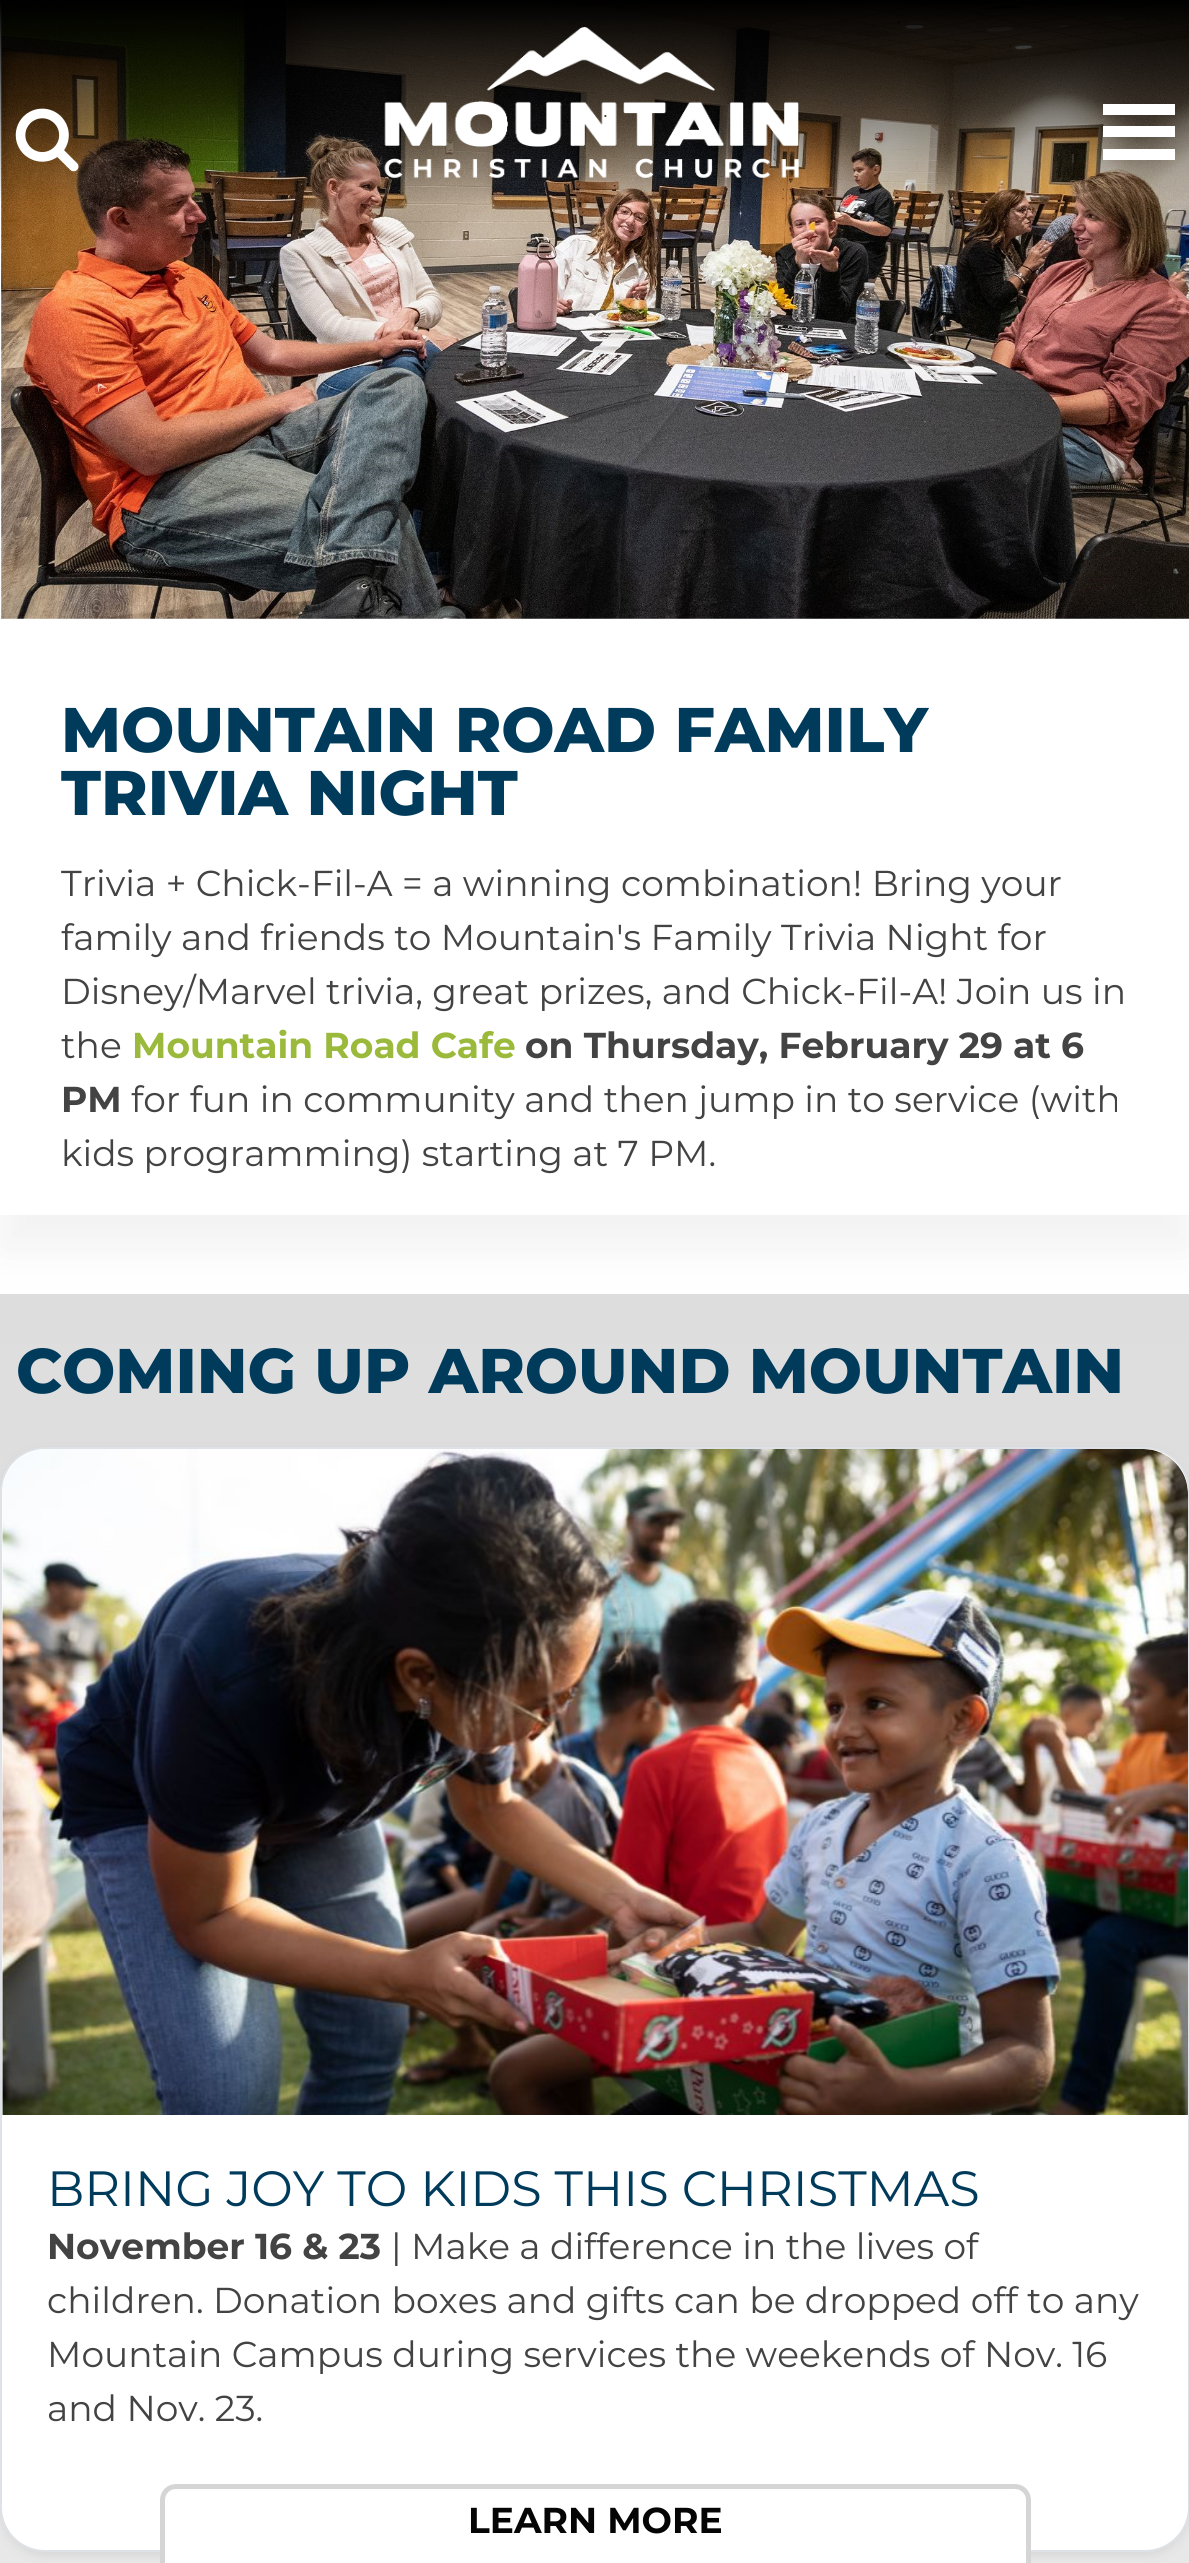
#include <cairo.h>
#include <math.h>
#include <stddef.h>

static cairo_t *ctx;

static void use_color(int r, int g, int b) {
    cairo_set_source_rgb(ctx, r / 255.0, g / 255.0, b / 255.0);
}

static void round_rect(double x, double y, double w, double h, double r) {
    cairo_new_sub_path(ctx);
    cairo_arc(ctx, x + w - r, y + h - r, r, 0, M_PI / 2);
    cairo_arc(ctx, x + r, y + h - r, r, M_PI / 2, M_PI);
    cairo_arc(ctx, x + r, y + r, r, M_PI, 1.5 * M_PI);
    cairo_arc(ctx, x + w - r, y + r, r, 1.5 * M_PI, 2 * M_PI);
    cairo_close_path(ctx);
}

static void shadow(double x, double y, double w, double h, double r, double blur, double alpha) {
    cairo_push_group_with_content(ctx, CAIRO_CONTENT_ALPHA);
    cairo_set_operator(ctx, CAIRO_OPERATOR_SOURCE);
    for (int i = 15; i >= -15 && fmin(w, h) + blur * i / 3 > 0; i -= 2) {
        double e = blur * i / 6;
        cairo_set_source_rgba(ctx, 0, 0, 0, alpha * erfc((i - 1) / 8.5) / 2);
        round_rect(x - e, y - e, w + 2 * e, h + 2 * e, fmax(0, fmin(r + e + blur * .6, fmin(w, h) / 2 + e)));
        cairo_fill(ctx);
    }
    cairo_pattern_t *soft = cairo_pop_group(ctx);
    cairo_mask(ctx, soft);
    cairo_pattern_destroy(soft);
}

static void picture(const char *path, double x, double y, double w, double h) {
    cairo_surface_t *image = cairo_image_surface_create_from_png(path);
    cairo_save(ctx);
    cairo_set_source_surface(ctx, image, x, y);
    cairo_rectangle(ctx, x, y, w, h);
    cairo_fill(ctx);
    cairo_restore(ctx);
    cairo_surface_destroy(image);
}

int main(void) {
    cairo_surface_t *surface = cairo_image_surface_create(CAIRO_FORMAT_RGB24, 1189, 2563);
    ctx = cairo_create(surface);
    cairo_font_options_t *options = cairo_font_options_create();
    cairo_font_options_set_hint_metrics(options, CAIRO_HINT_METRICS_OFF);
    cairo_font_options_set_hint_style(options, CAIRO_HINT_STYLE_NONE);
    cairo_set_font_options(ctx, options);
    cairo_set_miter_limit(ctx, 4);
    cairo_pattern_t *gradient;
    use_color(255, 255, 255);
    cairo_paint(ctx);
    cairo_save(ctx);
    cairo_set_fill_rule(ctx, CAIRO_FILL_RULE_EVEN_ODD);
    cairo_new_path(ctx);
    cairo_move_to(ctx, 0, 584);
    cairo_line_to(ctx, 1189, 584);
    cairo_line_to(ctx, 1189, 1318);
    cairo_line_to(ctx, 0, 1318);
    cairo_close_path(ctx);
    cairo_move_to(ctx, 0, 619);
    cairo_line_to(ctx, 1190, 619);
    cairo_line_to(ctx, 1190, 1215);
    cairo_line_to(ctx, 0, 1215);
    cairo_close_path(ctx);
    cairo_clip(ctx);
    use_color(242, 242, 242);
    shadow(0, 653, 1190, 596, 0, 22.5, 1);
    cairo_restore(ctx);
    picture("img3.png", 1, 1, 1188, 618);
    gradient = cairo_pattern_create_linear(595, 205, 595, 0);
    cairo_pattern_add_color_stop_rgba(gradient, 0, 0, 0, 0, 0);
    cairo_pattern_add_color_stop_rgba(gradient, 1, 0, 0, 0, 1);
    cairo_set_source(ctx, gradient);
    cairo_pattern_destroy(gradient);
    cairo_rectangle(ctx, 0, 0, 1189, 201);
    cairo_fill(ctx);
    picture("img1.png", 15, 108, 64, 64);
    picture("img2.png", 384, 27, 415, 151);
    use_color(255, 255, 255);
    cairo_rectangle(ctx, 1103, 104, 72, 11);
    cairo_fill(ctx);
    cairo_rectangle(ctx, 1103, 126, 72, 11);
    cairo_fill(ctx);
    cairo_rectangle(ctx, 1103, 149, 72, 11);
    cairo_fill(ctx);
    cairo_select_font_face(ctx, "Montserrat ExtraBold", CAIRO_FONT_SLANT_NORMAL, CAIRO_FONT_WEIGHT_NORMAL);
    cairo_set_font_size(ctx, 63);
    use_color(0, 59, 92);
    cairo_move_to(ctx, 61, 752);
    cairo_show_text(ctx, "MOUNTAIN ROAD FAMILY");
    cairo_move_to(ctx, 61, 815);
    cairo_show_text(ctx, "TRIVIA NIGHT");
    cairo_select_font_face(ctx, "Montserrat", CAIRO_FONT_SLANT_NORMAL, CAIRO_FONT_WEIGHT_NORMAL);
    cairo_set_font_size(ctx, 36);
    use_color(67, 67, 67);
    cairo_move_to(ctx, 61, 896);
    cairo_show_text(ctx, "Trivia + Chick-Fil-A = a winning combination! Bring your");
    cairo_move_to(ctx, 61, 950);
    cairo_show_text(ctx, "family and friends to Mountain's Family Trivia Night for");
    cairo_move_to(ctx, 61, 1004);
    cairo_show_text(ctx, "Disney/Marvel trivia, great prizes, and Chick-Fil-A! Join us in");
    cairo_move_to(ctx, 61, 1058);
    cairo_show_text(ctx, "the");
    cairo_select_font_face(ctx, "Montserrat", CAIRO_FONT_SLANT_NORMAL, CAIRO_FONT_WEIGHT_BOLD);
    use_color(155, 186, 60);
    cairo_move_to(ctx, 132, 1058);
    cairo_show_text(ctx, "Mountain Road Cafe");
    use_color(67, 67, 67);
    cairo_move_to(ctx, 525, 1058);
    cairo_show_text(ctx, "on Thursday, February 29 at 6");
    cairo_move_to(ctx, 61, 1112);
    cairo_show_text(ctx, "PM");
    cairo_select_font_face(ctx, "Montserrat", CAIRO_FONT_SLANT_NORMAL, CAIRO_FONT_WEIGHT_NORMAL);
    cairo_move_to(ctx, 131, 1112);
    cairo_show_text(ctx, "for fun in community and then jump in to service (with");
    cairo_move_to(ctx, 61, 1166);
    cairo_show_text(ctx, "kids programming) starting at 7 PM.");
    gradient = cairo_pattern_create_linear(595, 1294, 595, 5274);
    cairo_pattern_add_color_stop_rgba(gradient, 0, 0.867, 0.867, 0.867, 1);
    cairo_pattern_add_color_stop_rgba(gradient, 1, 1, 1, 1, 1);
    cairo_set_source(ctx, gradient);
    cairo_pattern_destroy(gradient);
    cairo_rectangle(ctx, 0, 1294, 1189, 1269);
    cairo_fill(ctx);
    cairo_select_font_face(ctx, "Montserrat ExtraBold", CAIRO_FONT_SLANT_NORMAL, CAIRO_FONT_WEIGHT_NORMAL);
    cairo_set_font_size(ctx, 63);
    use_color(0, 59, 92);
    cairo_move_to(ctx, 16, 1393);
    cairo_show_text(ctx, "COMING UP AROUND MOUNTAIN");
    use_color(145, 145, 145);
    shadow(0, 1451, 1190, 1105, 45, 5.5, 0.2);
    use_color(255, 255, 255);
    round_rect(1, 1448, 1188, 1103, 44);
    cairo_fill_preserve(ctx);
    use_color(222, 226, 230);
    cairo_stroke(ctx);
    picture("img4.png", 2, 1449, 1186, 666);
    cairo_select_font_face(ctx, "Montserrat", CAIRO_FONT_SLANT_NORMAL, CAIRO_FONT_WEIGHT_NORMAL);
    cairo_set_font_size(ctx, 49.5);
    use_color(0, 59, 92);
    cairo_move_to(ctx, 47, 2206);
    cairo_show_text(ctx, "BRING JOY TO KIDS THIS CHRISTMAS");
    cairo_select_font_face(ctx, "Montserrat", CAIRO_FONT_SLANT_NORMAL, CAIRO_FONT_WEIGHT_BOLD);
    cairo_set_font_size(ctx, 36);
    use_color(67, 67, 67);
    cairo_move_to(ctx, 47, 2259);
    cairo_show_text(ctx, "November 16 & 23");
    cairo_select_font_face(ctx, "Montserrat", CAIRO_FONT_SLANT_NORMAL, CAIRO_FONT_WEIGHT_NORMAL);
    cairo_move_to(ctx, 391, 2259);
    cairo_show_text(ctx, "| Make a difference in the lives of");
    cairo_move_to(ctx, 47, 2313);
    cairo_show_text(ctx, "children. Donation boxes and gifts can be dropped off to any");
    cairo_move_to(ctx, 47, 2367);
    cairo_show_text(ctx, "Mountain Campus during services the weekends of Nov. 16");
    cairo_move_to(ctx, 47, 2421);
    cairo_show_text(ctx, "and Nov. 23.");
    use_color(255, 255, 255);
    round_rect(162.5, 2486.5, 866, 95, 13.5);
    cairo_fill_preserve(ctx);
    use_color(213, 213, 213);
    cairo_set_line_width(ctx, 5);
    cairo_stroke(ctx);
    cairo_select_font_face(ctx, "Montserrat", CAIRO_FONT_SLANT_NORMAL, CAIRO_FONT_WEIGHT_BOLD);
    use_color(5, 5, 5);
    cairo_move_to(ctx, 468, 2533);
    cairo_show_text(ctx, "LEARN MORE");
    cairo_surface_write_to_png(surface, "result.png");
    cairo_font_options_destroy(options);
    cairo_destroy(ctx);
    cairo_surface_destroy(surface);
    return 0;
}
